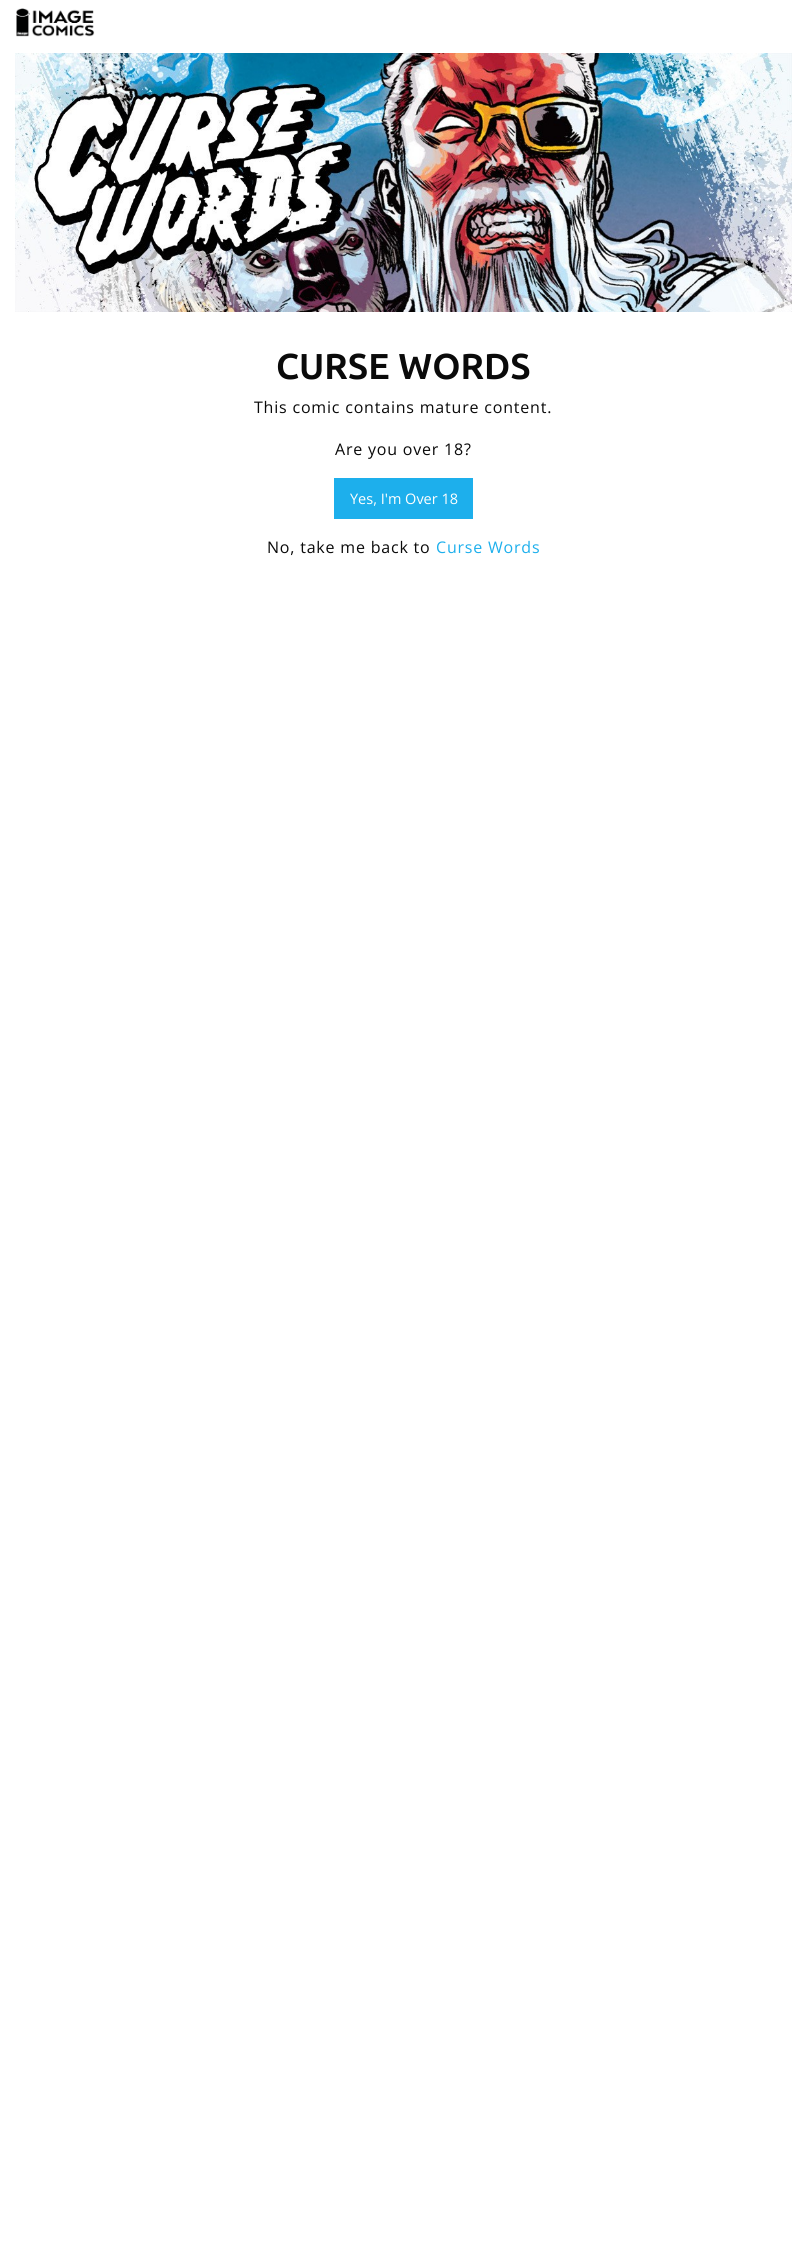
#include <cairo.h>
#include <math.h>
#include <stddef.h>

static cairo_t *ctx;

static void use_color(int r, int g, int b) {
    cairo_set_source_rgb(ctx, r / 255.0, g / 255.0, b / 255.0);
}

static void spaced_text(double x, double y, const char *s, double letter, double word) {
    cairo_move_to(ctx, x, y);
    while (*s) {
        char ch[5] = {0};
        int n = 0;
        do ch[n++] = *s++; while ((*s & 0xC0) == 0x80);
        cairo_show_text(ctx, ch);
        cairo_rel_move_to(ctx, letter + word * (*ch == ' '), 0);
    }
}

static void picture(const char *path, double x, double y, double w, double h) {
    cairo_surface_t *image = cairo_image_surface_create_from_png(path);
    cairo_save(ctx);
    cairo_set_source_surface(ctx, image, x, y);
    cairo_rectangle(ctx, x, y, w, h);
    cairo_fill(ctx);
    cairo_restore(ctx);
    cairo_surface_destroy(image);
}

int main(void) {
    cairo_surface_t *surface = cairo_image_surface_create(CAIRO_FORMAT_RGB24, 807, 2262);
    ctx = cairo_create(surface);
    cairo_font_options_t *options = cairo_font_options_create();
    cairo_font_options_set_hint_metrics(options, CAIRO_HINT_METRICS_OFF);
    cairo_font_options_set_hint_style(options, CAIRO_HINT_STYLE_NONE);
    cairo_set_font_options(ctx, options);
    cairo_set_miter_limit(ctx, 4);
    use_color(255, 255, 255);
    cairo_paint(ctx);
    picture("img1.png", 16, 8, 79, 29);
    picture("img2.png", 15, 53, 777, 259);
    cairo_select_font_face(ctx, "Ubuntu", CAIRO_FONT_SLANT_NORMAL, CAIRO_FONT_WEIGHT_BOLD);
    cairo_set_font_size(ctx, 36);
    use_color(10, 10, 10);
    cairo_move_to(ctx, 276, 379);
    cairo_show_text(ctx, "CURSE WORDS");
    cairo_select_font_face(ctx, "Open Sans", CAIRO_FONT_SLANT_NORMAL, CAIRO_FONT_WEIGHT_NORMAL);
    cairo_set_font_size(ctx, 16);
    spaced_text(254, 413, "This comic contains mature content.", 0.8, 0);
    spaced_text(335, 455, "Are you over 18?", 0.8, 0);
    use_color(29, 175, 236);
    cairo_rectangle(ctx, 334, 478, 139, 41);
    cairo_fill(ctx);
    cairo_set_font_size(ctx, 14.5);
    use_color(254, 254, 254);
    cairo_move_to(ctx, 350, 504);
    cairo_show_text(ctx, "Yes, I'm Over 18");
    cairo_set_font_size(ctx, 16);
    use_color(10, 10, 10);
    spaced_text(267, 553, "No, take me back to", 0.8, 0);
    use_color(29, 175, 236);
    spaced_text(436, 553, "Curse Words", 0.8, 0);
    cairo_surface_write_to_png(surface, "result.png");
    cairo_font_options_destroy(options);
    cairo_destroy(ctx);
    cairo_surface_destroy(surface);
    return 0;
}
